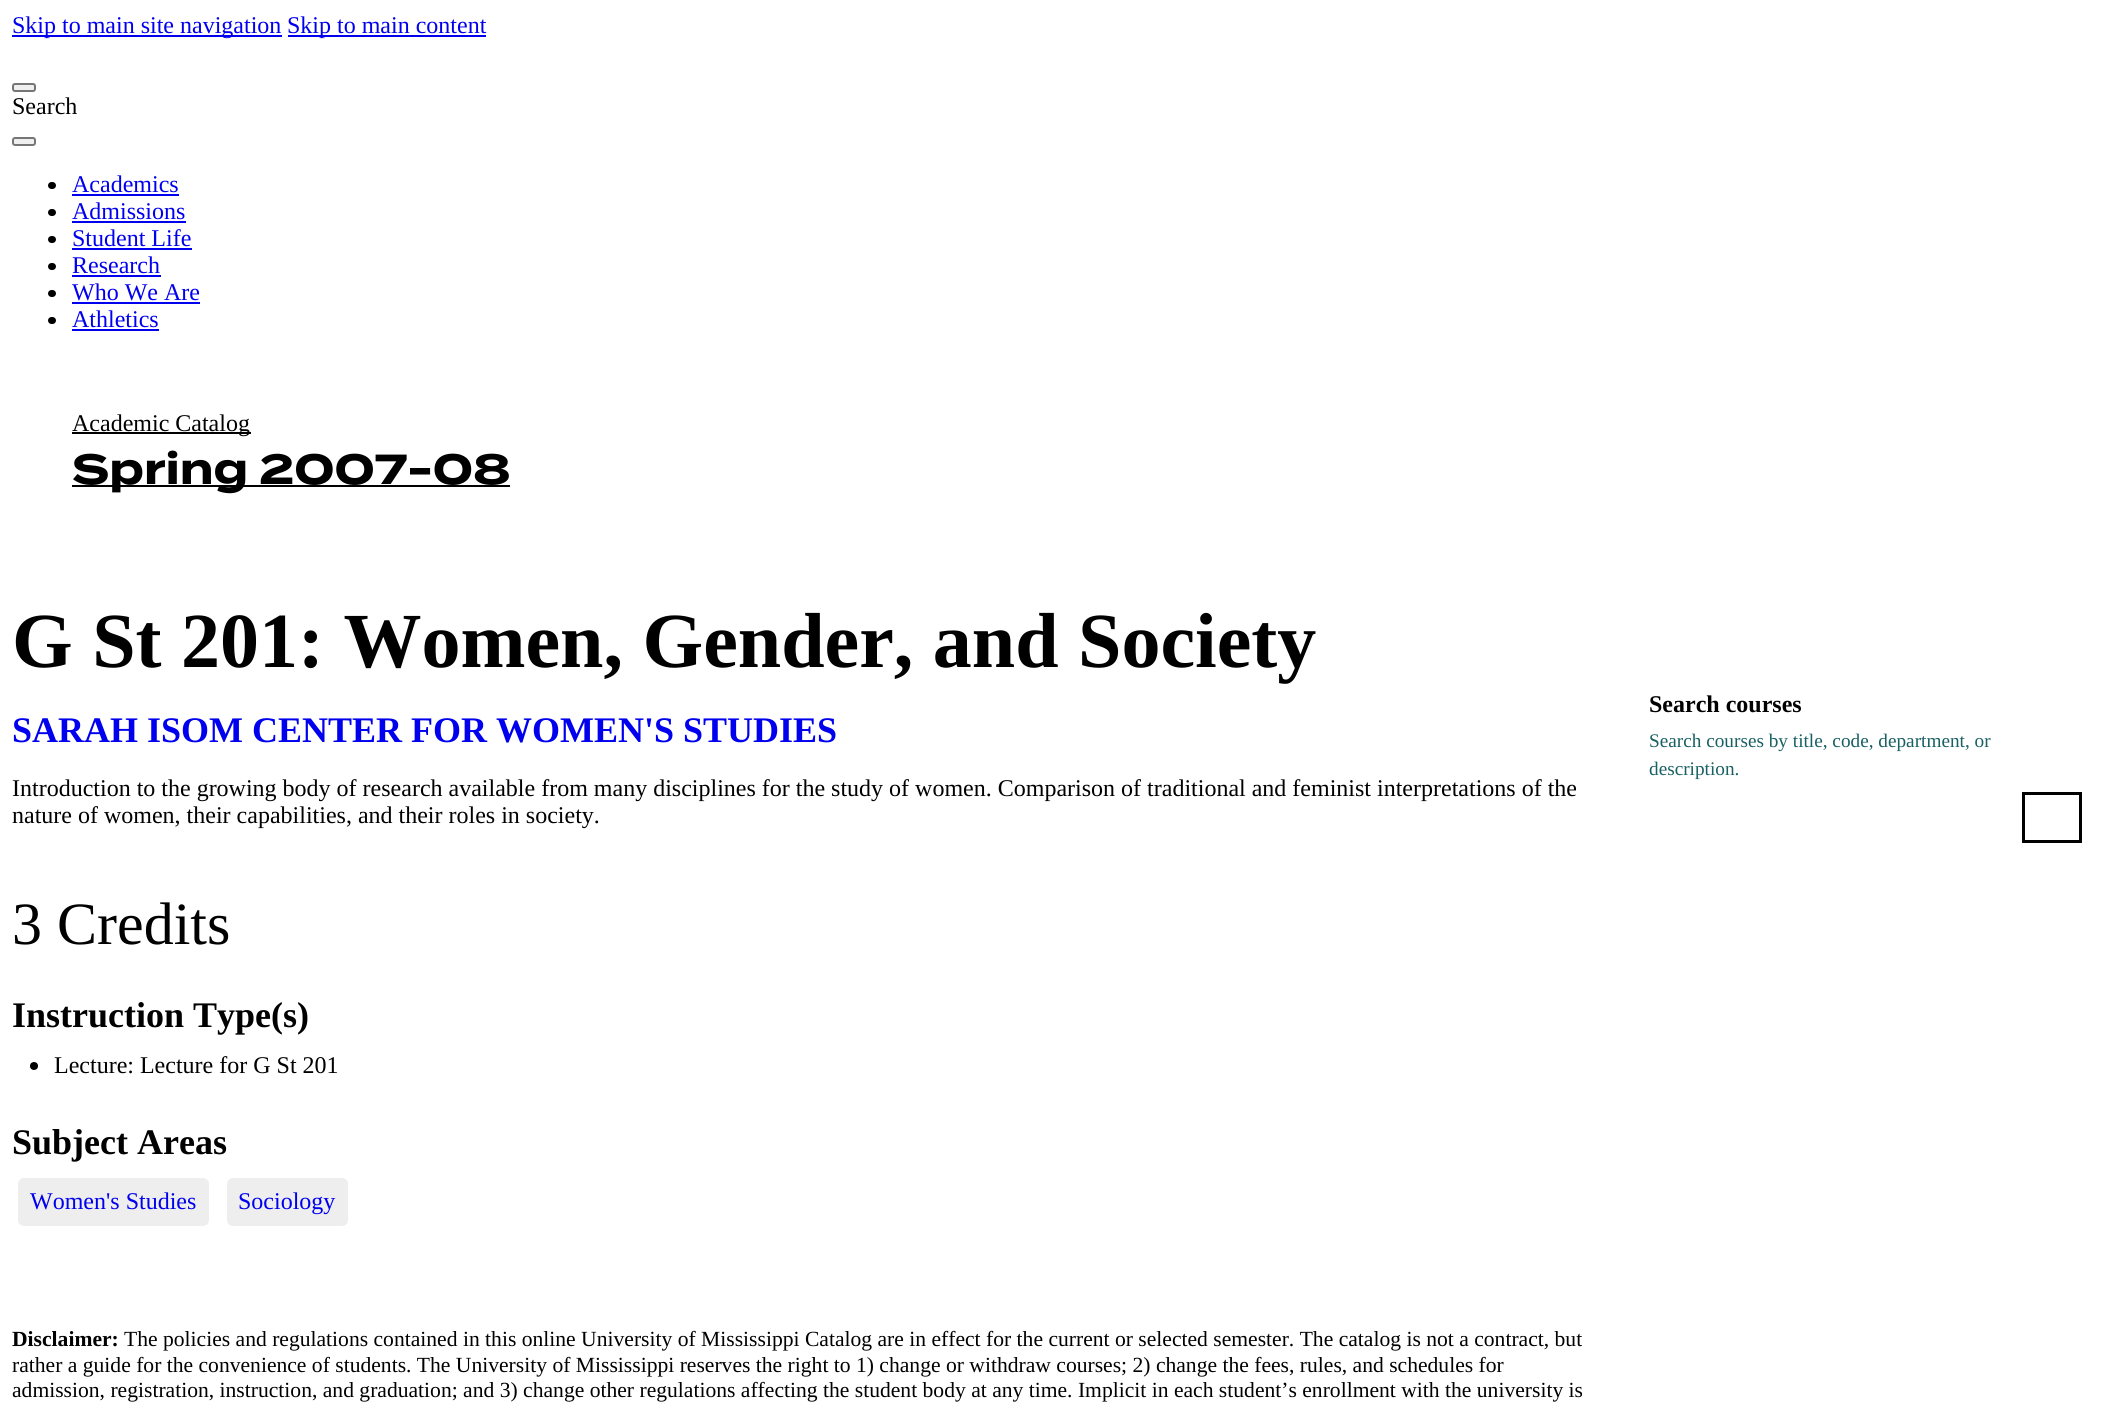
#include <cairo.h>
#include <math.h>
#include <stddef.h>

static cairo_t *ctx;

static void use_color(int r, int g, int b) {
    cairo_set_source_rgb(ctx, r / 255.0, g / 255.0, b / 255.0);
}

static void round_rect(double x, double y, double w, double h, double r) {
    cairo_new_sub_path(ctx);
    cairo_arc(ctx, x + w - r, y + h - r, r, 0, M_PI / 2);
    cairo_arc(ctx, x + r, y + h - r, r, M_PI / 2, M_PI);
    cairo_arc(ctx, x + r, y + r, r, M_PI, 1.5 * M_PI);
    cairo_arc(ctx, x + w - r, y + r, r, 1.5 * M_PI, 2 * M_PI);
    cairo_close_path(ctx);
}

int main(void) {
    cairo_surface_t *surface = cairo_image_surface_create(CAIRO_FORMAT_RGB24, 2109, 1415);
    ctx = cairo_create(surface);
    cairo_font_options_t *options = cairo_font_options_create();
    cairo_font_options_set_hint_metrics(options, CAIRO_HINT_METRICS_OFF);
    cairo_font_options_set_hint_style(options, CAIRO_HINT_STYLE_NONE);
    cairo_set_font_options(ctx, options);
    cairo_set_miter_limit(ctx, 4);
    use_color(255, 255, 255);
    cairo_paint(ctx);
    use_color(0, 0, 238);
    cairo_rectangle(ctx, 12, 35, 270, 2);
    cairo_fill(ctx);
    cairo_select_font_face(ctx, "Liberation Serif", CAIRO_FONT_SLANT_NORMAL, CAIRO_FONT_WEIGHT_NORMAL);
    cairo_set_font_size(ctx, 24);
    cairo_move_to(ctx, 12, 33);
    cairo_show_text(ctx, "Skip to main site navigation");
    cairo_rectangle(ctx, 288, 35, 198, 2);
    cairo_fill(ctx);
    cairo_move_to(ctx, 287, 33);
    cairo_show_text(ctx, "Skip to main content");
    use_color(239, 239, 239);
    round_rect(13, 84, 22, 7, 2);
    cairo_fill_preserve(ctx);
    use_color(118, 118, 118);
    cairo_stroke(ctx);
    use_color(0, 0, 0);
    cairo_move_to(ctx, 12, 114);
    cairo_show_text(ctx, "Search");
    use_color(239, 239, 239);
    round_rect(13, 138, 22, 7, 2);
    cairo_fill_preserve(ctx);
    use_color(118, 118, 118);
    cairo_stroke(ctx);
    use_color(0, 0, 0);
    round_rect(48, 182, 8, 7, 3.5);
    cairo_fill(ctx);
    use_color(0, 0, 238);
    cairo_move_to(ctx, 72, 192);
    cairo_show_text(ctx, "Academics");
    cairo_rectangle(ctx, 72, 194, 107, 2);
    cairo_fill(ctx);
    use_color(0, 0, 0);
    round_rect(48, 209, 8, 7, 3.5);
    cairo_fill(ctx);
    use_color(0, 0, 238);
    cairo_move_to(ctx, 72, 219);
    cairo_show_text(ctx, "Admissions");
    cairo_rectangle(ctx, 72, 221, 114, 2);
    cairo_fill(ctx);
    use_color(0, 0, 0);
    round_rect(48, 236, 8, 7, 3.5);
    cairo_fill(ctx);
    use_color(0, 0, 238);
    cairo_move_to(ctx, 72, 246);
    cairo_show_text(ctx, "Student Life");
    cairo_rectangle(ctx, 72, 248, 120, 2);
    cairo_fill(ctx);
    use_color(0, 0, 0);
    round_rect(48, 263, 8, 7, 3.5);
    cairo_fill(ctx);
    use_color(0, 0, 238);
    cairo_move_to(ctx, 72, 273);
    cairo_show_text(ctx, "Research");
    cairo_rectangle(ctx, 72, 275, 89, 2);
    cairo_fill(ctx);
    use_color(0, 0, 0);
    round_rect(48, 290, 8, 7, 3.5);
    cairo_fill(ctx);
    use_color(0, 0, 238);
    cairo_move_to(ctx, 72, 300);
    cairo_show_text(ctx, "Who We Are");
    cairo_rectangle(ctx, 72, 302, 128, 2);
    cairo_fill(ctx);
    use_color(0, 0, 0);
    round_rect(48, 317, 8, 7, 3.5);
    cairo_fill(ctx);
    use_color(0, 0, 238);
    cairo_move_to(ctx, 72, 327);
    cairo_show_text(ctx, "Athletics");
    cairo_rectangle(ctx, 72, 329, 87, 2);
    cairo_fill(ctx);
    use_color(0, 0, 0);
    cairo_rectangle(ctx, 72, 432, 179, 2);
    cairo_fill(ctx);
    cairo_move_to(ctx, 72, 431);
    cairo_show_text(ctx, "Academic Catalog");
    cairo_rectangle(ctx, 72, 485, 438, 2);
    cairo_fill(ctx);
    cairo_select_font_face(ctx, "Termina", CAIRO_FONT_SLANT_NORMAL, CAIRO_FONT_WEIGHT_BOLD);
    cairo_set_font_size(ctx, 42);
    cairo_move_to(ctx, 72, 484);
    cairo_show_text(ctx, "Spring 2007-08");
    cairo_select_font_face(ctx, "Liberation Serif", CAIRO_FONT_SLANT_NORMAL, CAIRO_FONT_WEIGHT_BOLD);
    cairo_set_font_size(ctx, 78);
    cairo_move_to(ctx, 12, 667);
    cairo_show_text(ctx, "G St 201: Women, Gender, and Society");
    cairo_set_font_size(ctx, 36);
    use_color(0, 0, 238);
    cairo_move_to(ctx, 12, 742);
    cairo_show_text(ctx, "SARAH ISOM CENTER FOR WOMEN'S STUDIES");
    cairo_select_font_face(ctx, "Liberation Serif", CAIRO_FONT_SLANT_NORMAL, CAIRO_FONT_WEIGHT_NORMAL);
    cairo_set_font_size(ctx, 24);
    use_color(0, 0, 0);
    cairo_move_to(ctx, 12, 796);
    cairo_show_text(ctx, "Introduction to the growing body of research available from many disciplines for the study of women. Comparison of traditional and feminist interpretations of the");
    cairo_move_to(ctx, 12, 823);
    cairo_show_text(ctx, "nature of women, their capabilities, and their roles in society.");
    cairo_set_font_size(ctx, 60);
    cairo_move_to(ctx, 12, 944);
    cairo_show_text(ctx, "3 Credits");
    cairo_select_font_face(ctx, "Liberation Serif", CAIRO_FONT_SLANT_NORMAL, CAIRO_FONT_WEIGHT_BOLD);
    cairo_set_font_size(ctx, 36);
    cairo_move_to(ctx, 12, 1027);
    cairo_show_text(ctx, "Instruction Type(s)");
    cairo_new_path(ctx);
    cairo_arc(ctx, 34, 1066, 4, 0, 2 * M_PI);
    cairo_fill(ctx);
    cairo_select_font_face(ctx, "Liberation Serif", CAIRO_FONT_SLANT_NORMAL, CAIRO_FONT_WEIGHT_NORMAL);
    cairo_set_font_size(ctx, 24);
    cairo_move_to(ctx, 54, 1073);
    cairo_show_text(ctx, "Lecture: Lecture for G St 201");
    cairo_select_font_face(ctx, "Liberation Serif", CAIRO_FONT_SLANT_NORMAL, CAIRO_FONT_WEIGHT_BOLD);
    cairo_set_font_size(ctx, 36);
    cairo_move_to(ctx, 12, 1154);
    cairo_show_text(ctx, "Subject Areas");
    use_color(238, 238, 238);
    round_rect(18, 1178, 191, 48, 6);
    cairo_fill(ctx);
    cairo_select_font_face(ctx, "Liberation Serif", CAIRO_FONT_SLANT_NORMAL, CAIRO_FONT_WEIGHT_NORMAL);
    cairo_set_font_size(ctx, 24);
    use_color(0, 0, 238);
    cairo_move_to(ctx, 30, 1209);
    cairo_show_text(ctx, "Women's Studies");
    use_color(238, 238, 238);
    round_rect(227, 1178, 121, 48, 6);
    cairo_fill(ctx);
    use_color(0, 0, 238);
    cairo_move_to(ctx, 238, 1209);
    cairo_show_text(ctx, "Sociology");
    cairo_select_font_face(ctx, "Liberation Serif", CAIRO_FONT_SLANT_NORMAL, CAIRO_FONT_WEIGHT_BOLD);
    cairo_set_font_size(ctx, 21.6);
    use_color(0, 0, 0);
    cairo_move_to(ctx, 12, 1346);
    cairo_show_text(ctx, "Disclaimer:");
    cairo_select_font_face(ctx, "Liberation Serif", CAIRO_FONT_SLANT_NORMAL, CAIRO_FONT_WEIGHT_NORMAL);
    cairo_move_to(ctx, 124, 1346);
    cairo_show_text(ctx, "The policies and regulations contained in this online University of Mississippi Catalog are in effect for the current or selected semester. The catalog is not a contract, but");
    cairo_move_to(ctx, 12, 1372);
    cairo_show_text(ctx, "rather a guide for the convenience of students. The University of Mississippi reserves the right to 1) change or withdraw courses; 2) change the fees, rules, and schedules for");
    cairo_move_to(ctx, 12, 1397);
    cairo_show_text(ctx, "admission, registration, instruction, and graduation; and 3) change other regulations affecting the student body at any time. Implicit in each student’s enrollment with the university is");
    cairo_select_font_face(ctx, "Liberation Serif", CAIRO_FONT_SLANT_NORMAL, CAIRO_FONT_WEIGHT_BOLD);
    cairo_set_font_size(ctx, 24);
    cairo_move_to(ctx, 1649, 712);
    cairo_show_text(ctx, "Search courses");
    cairo_select_font_face(ctx, "Liberation Serif", CAIRO_FONT_SLANT_NORMAL, CAIRO_FONT_WEIGHT_NORMAL);
    cairo_set_font_size(ctx, 19.25);
    use_color(24, 96, 99);
    cairo_move_to(ctx, 1649, 747);
    cairo_show_text(ctx, "Search courses by title, code, department, or");
    cairo_move_to(ctx, 1649, 775);
    cairo_show_text(ctx, "description.");
    cairo_rectangle(ctx, 2023.5, 793.5, 57, 48);
    use_color(0, 0, 0);
    cairo_set_line_width(ctx, 3);
    cairo_stroke(ctx);
    cairo_surface_write_to_png(surface, "result.png");
    cairo_font_options_destroy(options);
    cairo_destroy(ctx);
    cairo_surface_destroy(surface);
    return 0;
}
